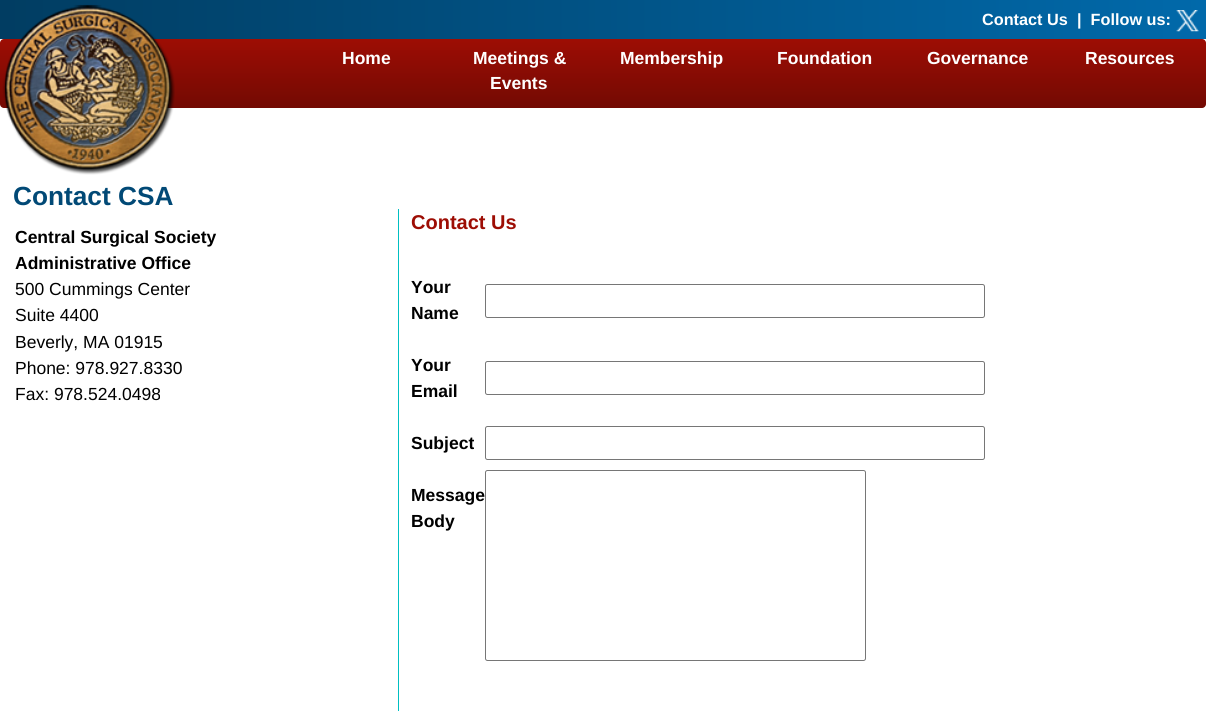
#include <cairo.h>
#include <math.h>
#include <stddef.h>

static cairo_t *ctx;

static void use_color(int r, int g, int b) {
    cairo_set_source_rgb(ctx, r / 255.0, g / 255.0, b / 255.0);
}

static void round_rect(double x, double y, double w, double h, double r) {
    cairo_new_sub_path(ctx);
    cairo_arc(ctx, x + w - r, y + h - r, r, 0, M_PI / 2);
    cairo_arc(ctx, x + r, y + h - r, r, M_PI / 2, M_PI);
    cairo_arc(ctx, x + r, y + r, r, M_PI, 1.5 * M_PI);
    cairo_arc(ctx, x + w - r, y + r, r, 1.5 * M_PI, 2 * M_PI);
    cairo_close_path(ctx);
}

static void picture(const char *path, double x, double y, double w, double h) {
    cairo_surface_t *image = cairo_image_surface_create_from_png(path);
    cairo_save(ctx);
    cairo_set_source_surface(ctx, image, x, y);
    cairo_rectangle(ctx, x, y, w, h);
    cairo_fill(ctx);
    cairo_restore(ctx);
    cairo_surface_destroy(image);
}

int main(void) {
    cairo_surface_t *surface = cairo_image_surface_create(CAIRO_FORMAT_RGB24, 1206, 711);
    ctx = cairo_create(surface);
    cairo_font_options_t *options = cairo_font_options_create();
    cairo_font_options_set_hint_metrics(options, CAIRO_HINT_METRICS_OFF);
    cairo_font_options_set_hint_style(options, CAIRO_HINT_STYLE_NONE);
    cairo_set_font_options(ctx, options);
    cairo_set_miter_limit(ctx, 4);
    cairo_pattern_t *gradient;
    use_color(255, 255, 255);
    cairo_paint(ctx);
    gradient = cairo_pattern_create_linear(0, 19, 1206, 19);
    cairo_pattern_add_color_stop_rgba(gradient, 0, 0.004, 0.239, 0.384, 1);
    cairo_pattern_add_color_stop_rgba(gradient, 1, 0.004, 0.412, 0.667, 1);
    cairo_set_source(ctx, gradient);
    cairo_pattern_destroy(gradient);
    cairo_rectangle(ctx, 0, 0, 1206, 39);
    cairo_fill(ctx);
    gradient = cairo_pattern_create_linear(603, 39, 603, 108);
    cairo_pattern_add_color_stop_rgba(gradient, 0, 0.616, 0.051, 0.016, 1);
    cairo_pattern_add_color_stop_rgba(gradient, 1, 0.451, 0.039, 0.012, 1);
    cairo_set_source(ctx, gradient);
    cairo_pattern_destroy(gradient);
    round_rect(0, 39, 1206, 69, 4);
    cairo_fill(ctx);
    picture("img1.png", 2, 4, 173, 171);
    cairo_select_font_face(ctx, "Liberation Sans", CAIRO_FONT_SLANT_NORMAL, CAIRO_FONT_WEIGHT_BOLD);
    cairo_set_font_size(ctx, 16.25);
    use_color(255, 255, 255);
    cairo_move_to(ctx, 982, 25);
    cairo_show_text(ctx, "Contact Us");
    cairo_move_to(ctx, 1077, 25);
    cairo_show_text(ctx, "|  Follow us:");
    picture("img2.png", 1176, 10, 23, 22);
    cairo_set_font_size(ctx, 17.5);
    cairo_move_to(ctx, 342, 64);
    cairo_show_text(ctx, "Home");
    cairo_move_to(ctx, 473, 64);
    cairo_show_text(ctx, "Meetings &");
    cairo_move_to(ctx, 490, 89);
    cairo_show_text(ctx, "Events");
    cairo_move_to(ctx, 620, 64);
    cairo_show_text(ctx, "Membership");
    cairo_move_to(ctx, 777, 64);
    cairo_show_text(ctx, "Foundation");
    cairo_move_to(ctx, 927, 64);
    cairo_show_text(ctx, "Governance");
    cairo_move_to(ctx, 1085, 64);
    cairo_show_text(ctx, "Resources");
    cairo_set_font_size(ctx, 26.25);
    use_color(1, 73, 118);
    cairo_move_to(ctx, 13, 205);
    cairo_show_text(ctx, "Contact CSA");
    use_color(0, 191, 194);
    cairo_rectangle(ctx, 398, 209, 1, 502);
    cairo_fill(ctx);
    cairo_set_font_size(ctx, 17.5);
    use_color(0, 0, 0);
    cairo_move_to(ctx, 15, 243);
    cairo_show_text(ctx, "Central Surgical Society");
    cairo_move_to(ctx, 15, 269);
    cairo_show_text(ctx, "Administrative Office");
    cairo_select_font_face(ctx, "Liberation Sans", CAIRO_FONT_SLANT_NORMAL, CAIRO_FONT_WEIGHT_NORMAL);
    cairo_move_to(ctx, 15, 295);
    cairo_show_text(ctx, "500 Cummings Center");
    cairo_move_to(ctx, 15, 321);
    cairo_show_text(ctx, "Suite 4400");
    cairo_move_to(ctx, 15, 348);
    cairo_show_text(ctx, "Beverly, MA 01915");
    cairo_move_to(ctx, 15, 374);
    cairo_show_text(ctx, "Phone: 978.927.8330");
    cairo_move_to(ctx, 15, 400);
    cairo_show_text(ctx, "Fax: 978.524.0498");
    cairo_select_font_face(ctx, "Liberation Sans", CAIRO_FONT_SLANT_NORMAL, CAIRO_FONT_WEIGHT_BOLD);
    cairo_set_font_size(ctx, 20);
    use_color(157, 13, 4);
    cairo_move_to(ctx, 411, 229);
    cairo_show_text(ctx, "Contact Us");
    cairo_set_font_size(ctx, 17.5);
    use_color(0, 0, 0);
    cairo_move_to(ctx, 411, 293);
    cairo_show_text(ctx, "Your");
    cairo_move_to(ctx, 411, 319);
    cairo_show_text(ctx, "Name");
    round_rect(485.5, 284.5, 499, 33, 2);
    use_color(118, 118, 118);
    cairo_set_line_width(ctx, 1);
    cairo_stroke(ctx);
    use_color(0, 0, 0);
    cairo_move_to(ctx, 411, 371);
    cairo_show_text(ctx, "Your");
    cairo_move_to(ctx, 411, 397);
    cairo_show_text(ctx, "Email");
    round_rect(485.5, 361.5, 499, 33, 2);
    use_color(118, 118, 118);
    cairo_stroke(ctx);
    use_color(0, 0, 0);
    cairo_move_to(ctx, 411, 449);
    cairo_show_text(ctx, "Subject");
    round_rect(485.5, 426.5, 499, 33, 2);
    use_color(118, 118, 118);
    cairo_stroke(ctx);
    use_color(0, 0, 0);
    cairo_move_to(ctx, 411, 501);
    cairo_show_text(ctx, "Message");
    cairo_move_to(ctx, 411, 527);
    cairo_show_text(ctx, "Body");
    round_rect(485.5, 470.5, 380, 190, 2);
    use_color(118, 118, 118);
    cairo_stroke(ctx);
    cairo_surface_write_to_png(surface, "result.png");
    cairo_font_options_destroy(options);
    cairo_destroy(ctx);
    cairo_surface_destroy(surface);
    return 0;
}
